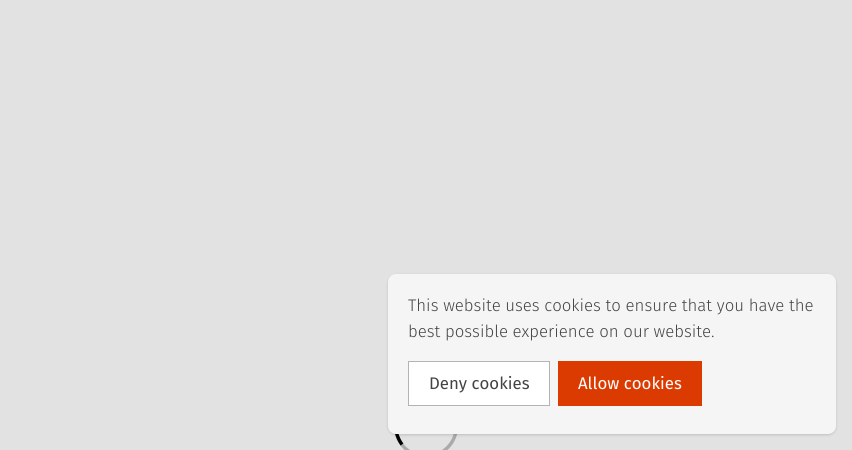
#include <cairo.h>
#include <math.h>
#include <stddef.h>

static cairo_t *ctx;

static void use_color(int r, int g, int b) {
    cairo_set_source_rgb(ctx, r / 255.0, g / 255.0, b / 255.0);
}

static void round_rect(double x, double y, double w, double h, double r) {
    cairo_new_sub_path(ctx);
    cairo_arc(ctx, x + w - r, y + h - r, r, 0, M_PI / 2);
    cairo_arc(ctx, x + r, y + h - r, r, M_PI / 2, M_PI);
    cairo_arc(ctx, x + r, y + r, r, M_PI, 1.5 * M_PI);
    cairo_arc(ctx, x + w - r, y + r, r, 1.5 * M_PI, 2 * M_PI);
    cairo_close_path(ctx);
}

static void shadow(double x, double y, double w, double h, double r, double blur, double alpha) {
    cairo_push_group_with_content(ctx, CAIRO_CONTENT_ALPHA);
    cairo_set_operator(ctx, CAIRO_OPERATOR_SOURCE);
    for (int i = 15; i >= -15 && fmin(w, h) + blur * i / 3 > 0; i -= 2) {
        double e = blur * i / 6;
        cairo_set_source_rgba(ctx, 0, 0, 0, alpha * erfc((i - 1) / 8.5) / 2);
        round_rect(x - e, y - e, w + 2 * e, h + 2 * e, fmax(0, fmin(r + e + blur * .6, fmin(w, h) / 2 + e)));
        cairo_fill(ctx);
    }
    cairo_pattern_t *soft = cairo_pop_group(ctx);
    cairo_mask(ctx, soft);
    cairo_pattern_destroy(soft);
}

int main(void) {
    cairo_surface_t *surface = cairo_image_surface_create(CAIRO_FORMAT_RGB24, 852, 450);
    ctx = cairo_create(surface);
    cairo_font_options_t *options = cairo_font_options_create();
    cairo_font_options_set_hint_metrics(options, CAIRO_HINT_METRICS_OFF);
    cairo_font_options_set_hint_style(options, CAIRO_HINT_STYLE_NONE);
    cairo_set_font_options(ctx, options);
    cairo_set_miter_limit(ctx, 4);
    use_color(226, 226, 226);
    cairo_paint(ctx);
    cairo_arc(ctx, 426, 426, 30.5, 0, 2 * M_PI);
    use_color(170, 170, 170);
    cairo_set_line_width(ctx, 3.4);
    cairo_stroke(ctx);
    cairo_new_path(ctx);
    cairo_move_to(ctx, 407.5, 402);
    cairo_curve_to(ctx, 394, 412, 392, 431, 402, 444.5);
    use_color(0, 0, 0);
    cairo_stroke(ctx);
    use_color(0, 0, 0);
    shadow(388, 275, 448, 160, 8, 1, 0.06);
    shadow(388, 275, 448, 160, 8, 1.5, 0.1);
    use_color(245, 245, 245);
    round_rect(388, 274, 448, 160, 8);
    cairo_fill(ctx);
    cairo_select_font_face(ctx, "Fira Sans Light", CAIRO_FONT_SLANT_NORMAL, CAIRO_FONT_WEIGHT_NORMAL);
    cairo_set_font_size(ctx, 16.8);
    use_color(68, 68, 68);
    cairo_move_to(ctx, 408, 311);
    cairo_show_text(ctx, "This website uses cookies to ensure that you have the");
    cairo_move_to(ctx, 408, 337);
    cairo_show_text(ctx, "best possible experience on our website.");
    use_color(255, 255, 255);
    cairo_rectangle(ctx, 408.5, 361.5, 141, 44);
    cairo_fill_preserve(ctx);
    use_color(179, 179, 179);
    cairo_set_line_width(ctx, 1);
    cairo_stroke(ctx);
    cairo_select_font_face(ctx, "Fira Sans", CAIRO_FONT_SLANT_NORMAL, CAIRO_FONT_WEIGHT_NORMAL);
    use_color(68, 68, 68);
    cairo_move_to(ctx, 429, 389);
    cairo_show_text(ctx, "Deny cookies");
    use_color(219, 58, 0);
    cairo_rectangle(ctx, 558, 361, 144, 45);
    cairo_fill(ctx);
    use_color(255, 255, 255);
    cairo_move_to(ctx, 578, 389);
    cairo_show_text(ctx, "Allow cookies");
    cairo_surface_write_to_png(surface, "result.png");
    cairo_font_options_destroy(options);
    cairo_destroy(ctx);
    cairo_surface_destroy(surface);
    return 0;
}
